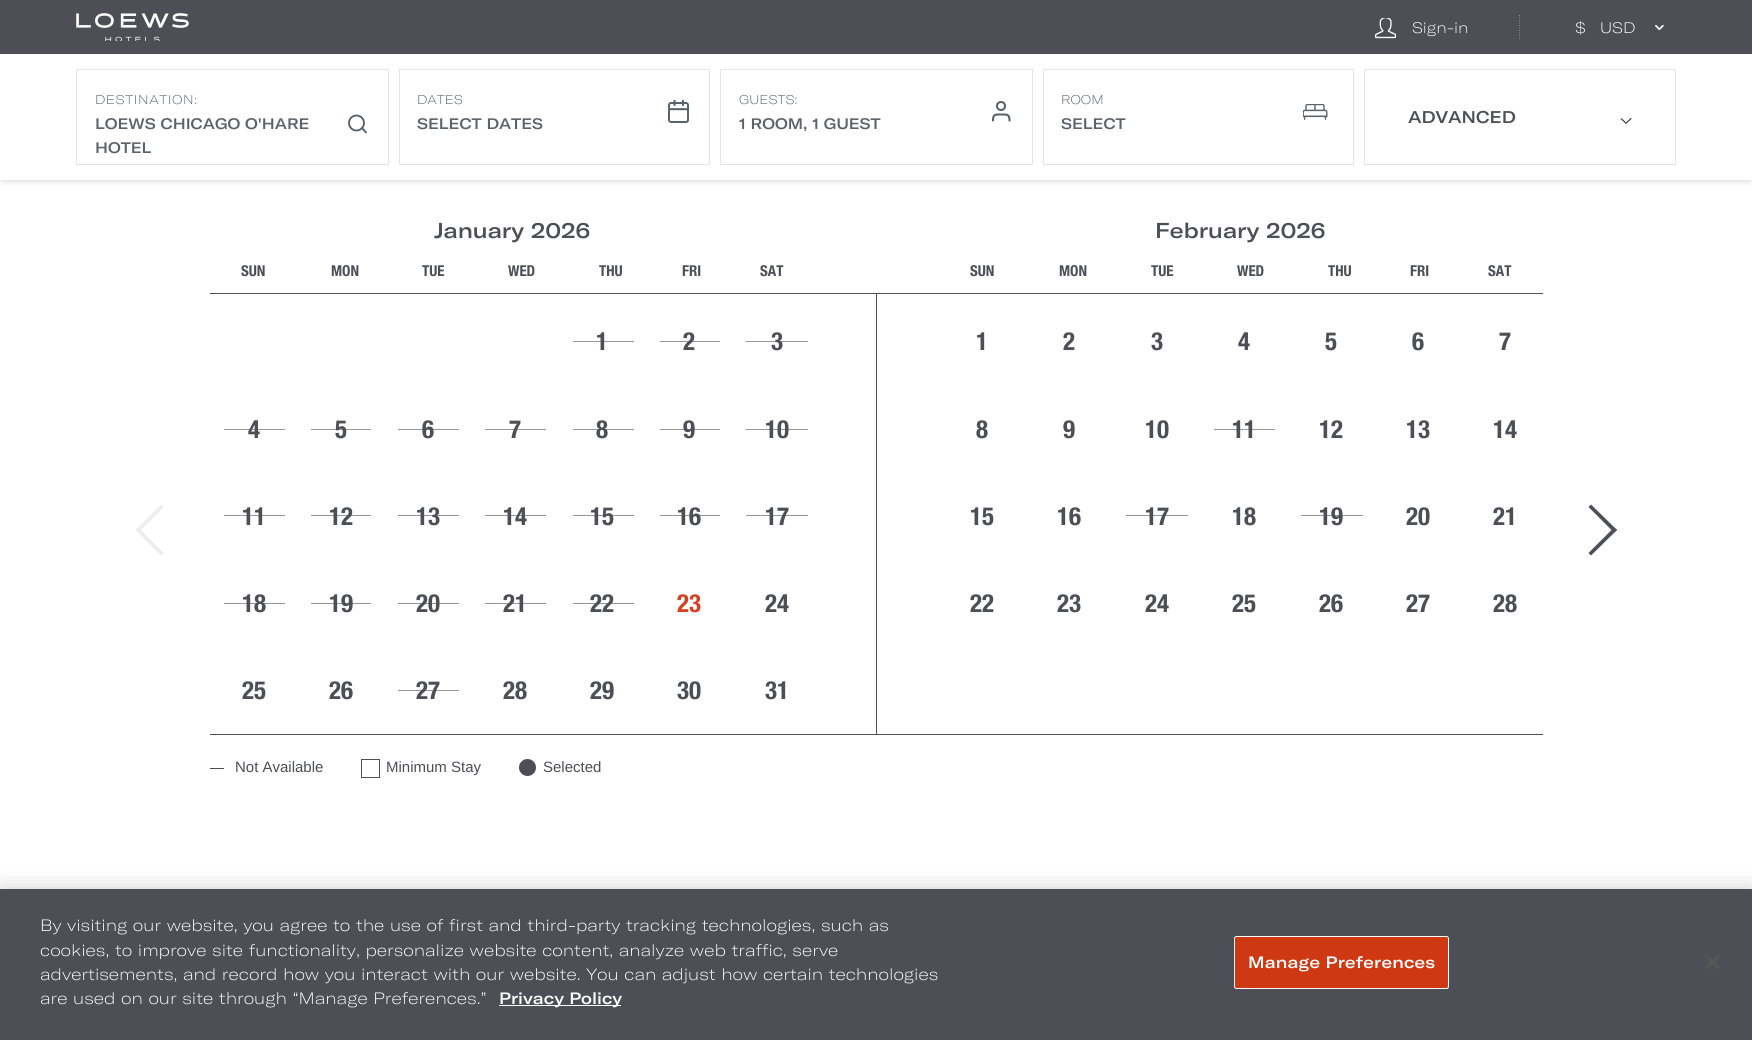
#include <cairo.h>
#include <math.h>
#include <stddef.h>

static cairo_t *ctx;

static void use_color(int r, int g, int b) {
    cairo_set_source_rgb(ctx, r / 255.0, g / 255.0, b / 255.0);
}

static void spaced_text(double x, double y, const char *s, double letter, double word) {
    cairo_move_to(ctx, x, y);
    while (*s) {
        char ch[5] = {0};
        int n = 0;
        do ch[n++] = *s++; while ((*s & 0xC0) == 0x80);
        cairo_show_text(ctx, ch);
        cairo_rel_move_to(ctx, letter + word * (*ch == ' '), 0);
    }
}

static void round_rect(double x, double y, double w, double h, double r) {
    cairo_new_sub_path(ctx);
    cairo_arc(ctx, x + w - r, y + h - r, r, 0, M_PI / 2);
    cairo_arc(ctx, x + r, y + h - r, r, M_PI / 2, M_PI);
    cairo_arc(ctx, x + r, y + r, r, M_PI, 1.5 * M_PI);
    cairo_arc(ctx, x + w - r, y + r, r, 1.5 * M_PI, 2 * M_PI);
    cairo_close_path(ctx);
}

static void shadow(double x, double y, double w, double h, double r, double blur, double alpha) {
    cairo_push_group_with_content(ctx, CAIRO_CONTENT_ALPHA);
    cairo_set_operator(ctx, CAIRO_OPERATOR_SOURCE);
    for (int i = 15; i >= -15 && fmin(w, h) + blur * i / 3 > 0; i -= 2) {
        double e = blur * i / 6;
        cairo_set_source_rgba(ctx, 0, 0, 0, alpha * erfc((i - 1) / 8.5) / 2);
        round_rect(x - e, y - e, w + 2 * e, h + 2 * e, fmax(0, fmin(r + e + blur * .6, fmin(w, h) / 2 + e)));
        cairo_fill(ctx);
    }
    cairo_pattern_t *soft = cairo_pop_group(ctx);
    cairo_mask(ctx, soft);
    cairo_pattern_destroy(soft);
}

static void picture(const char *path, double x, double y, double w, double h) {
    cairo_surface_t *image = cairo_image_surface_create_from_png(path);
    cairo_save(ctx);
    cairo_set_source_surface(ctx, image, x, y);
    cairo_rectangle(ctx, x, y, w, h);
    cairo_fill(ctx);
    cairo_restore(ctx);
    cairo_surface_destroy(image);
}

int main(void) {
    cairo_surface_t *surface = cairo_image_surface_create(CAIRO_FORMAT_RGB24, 1752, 1040);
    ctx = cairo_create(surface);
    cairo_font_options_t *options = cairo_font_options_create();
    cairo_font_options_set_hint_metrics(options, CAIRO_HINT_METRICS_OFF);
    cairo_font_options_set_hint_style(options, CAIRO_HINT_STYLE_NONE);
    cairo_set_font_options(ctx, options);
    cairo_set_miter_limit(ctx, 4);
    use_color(255, 255, 255);
    cairo_paint(ctx);
    use_color(77, 78, 86);
    cairo_rectangle(ctx, 0, 0, 1752, 54);
    cairo_fill(ctx);
    picture("img1.png", 76, 13, 113, 28);
    picture("img2.png", 1375, 18, 21, 21);
    cairo_select_font_face(ctx, "GT America Light", CAIRO_FONT_SLANT_NORMAL, CAIRO_FONT_WEIGHT_NORMAL);
    cairo_set_font_size(ctx, 15);
    use_color(255, 255, 255);
    cairo_move_to(ctx, 1412, 33);
    cairo_show_text(ctx, "Sign-in");
    cairo_new_path(ctx);
    cairo_move_to(ctx, 1519.5, 15.5);
    cairo_line_to(ctx, 1519.5, 39.5);
    cairo_set_line_width(ctx, 0.6);
    cairo_set_line_cap(ctx, CAIRO_LINE_CAP_SQUARE);
    cairo_set_dash(ctx, (double[]){0, 2.5}, 2, 0);
    cairo_stroke(ctx);
    cairo_move_to(ctx, 1575, 33);
    cairo_show_text(ctx, "$");
    cairo_move_to(ctx, 1600, 33);
    cairo_show_text(ctx, "USD");
    picture("img3.png", 1655, 25, 9, 5);
    cairo_save(ctx);
    cairo_rectangle(ctx, 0, 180, 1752, 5);
    cairo_clip(ctx);
    use_color(0, 0, 0);
    shadow(3, 59, 1747, 121, 0, 4, 0.21);
    cairo_restore(ctx);
    cairo_rectangle(ctx, 76.5, 69.5, 312, 95);
    use_color(229, 229, 229);
    cairo_set_line_width(ctx, 1);
    cairo_set_line_cap(ctx, CAIRO_LINE_CAP_BUTT);
    cairo_set_dash(ctx, NULL, 0, 0);
    cairo_stroke(ctx);
    cairo_set_font_size(ctx, 12.5);
    use_color(91, 99, 106);
    spaced_text(95, 104, "DESTINATION:", 0.6, 0);
    cairo_select_font_face(ctx, "GT America Medium", CAIRO_FONT_SLANT_NORMAL, CAIRO_FONT_WEIGHT_NORMAL);
    cairo_set_font_size(ctx, 15);
    cairo_move_to(ctx, 95, 129);
    cairo_show_text(ctx, "LOEWS CHICAGO O'HARE");
    cairo_move_to(ctx, 95, 153);
    cairo_show_text(ctx, "HOTEL");
    cairo_new_path(ctx);
    cairo_arc(ctx, 356.5, 123, 7.5, 0, 2 * M_PI);
    cairo_set_line_width(ctx, 1.9);
    cairo_stroke(ctx);
    cairo_new_path(ctx);
    cairo_move_to(ctx, 366, 132.5);
    cairo_line_to(ctx, 362, 128);
    cairo_set_line_cap(ctx, CAIRO_LINE_CAP_ROUND);
    cairo_set_line_join(ctx, CAIRO_LINE_JOIN_ROUND);
    cairo_stroke(ctx);
    cairo_rectangle(ctx, 399.5, 69.5, 310, 95);
    use_color(229, 229, 229);
    cairo_set_line_width(ctx, 1);
    cairo_set_line_cap(ctx, CAIRO_LINE_CAP_BUTT);
    cairo_set_line_join(ctx, CAIRO_LINE_JOIN_MITER);
    cairo_stroke(ctx);
    cairo_select_font_face(ctx, "GT America Light", CAIRO_FONT_SLANT_NORMAL, CAIRO_FONT_WEIGHT_NORMAL);
    cairo_set_font_size(ctx, 12.5);
    use_color(91, 99, 106);
    cairo_move_to(ctx, 417, 104);
    cairo_show_text(ctx, "DATES");
    cairo_select_font_face(ctx, "GT America Medium", CAIRO_FONT_SLANT_NORMAL, CAIRO_FONT_WEIGHT_NORMAL);
    cairo_set_font_size(ctx, 15);
    cairo_move_to(ctx, 417, 129);
    cairo_show_text(ctx, "SELECT DATES");
    picture("img4.png", 668, 99, 22, 24);
    cairo_rectangle(ctx, 720.5, 69.5, 312, 95);
    use_color(229, 229, 229);
    cairo_stroke(ctx);
    cairo_select_font_face(ctx, "GT America Light", CAIRO_FONT_SLANT_NORMAL, CAIRO_FONT_WEIGHT_NORMAL);
    cairo_set_font_size(ctx, 12.5);
    use_color(91, 99, 106);
    cairo_move_to(ctx, 739, 104);
    cairo_show_text(ctx, "GUESTS:");
    cairo_select_font_face(ctx, "GT America Medium", CAIRO_FONT_SLANT_NORMAL, CAIRO_FONT_WEIGHT_NORMAL);
    cairo_set_font_size(ctx, 15);
    cairo_move_to(ctx, 739, 129);
    cairo_show_text(ctx, "1 ROOM, 1 GUEST");
    cairo_new_path(ctx);
    cairo_move_to(ctx, 1009.5, 120.5);
    cairo_curve_to(ctx, 1009.5, 114, 1007, 114.5, 1001, 114.5);
    cairo_curve_to(ctx, 995.5, 114.5, 993, 114, 993, 120.5);
    cairo_set_line_width(ctx, 2.1);
    cairo_set_line_cap(ctx, CAIRO_LINE_CAP_ROUND);
    cairo_set_line_join(ctx, CAIRO_LINE_JOIN_ROUND);
    cairo_stroke(ctx);
    cairo_arc(ctx, 1001, 106, 4, 0, 2 * M_PI);
    cairo_set_line_cap(ctx, CAIRO_LINE_CAP_BUTT);
    cairo_set_line_join(ctx, CAIRO_LINE_JOIN_MITER);
    cairo_stroke(ctx);
    cairo_rectangle(ctx, 1043.5, 69.5, 310, 95);
    use_color(229, 229, 229);
    cairo_set_line_width(ctx, 1);
    cairo_stroke(ctx);
    cairo_select_font_face(ctx, "GT America Light", CAIRO_FONT_SLANT_NORMAL, CAIRO_FONT_WEIGHT_NORMAL);
    cairo_set_font_size(ctx, 12.5);
    use_color(91, 99, 106);
    cairo_move_to(ctx, 1061, 104);
    cairo_show_text(ctx, "ROOM");
    cairo_select_font_face(ctx, "GT America Medium", CAIRO_FONT_SLANT_NORMAL, CAIRO_FONT_WEIGHT_NORMAL);
    cairo_set_font_size(ctx, 15);
    cairo_move_to(ctx, 1061, 129);
    cairo_show_text(ctx, "SELECT");
    picture("img5.png", 1303, 104, 25, 16);
    cairo_rectangle(ctx, 1364.5, 69.5, 311, 95);
    use_color(229, 229, 229);
    cairo_stroke(ctx);
    cairo_set_font_size(ctx, 16.75);
    use_color(77, 78, 86);
    cairo_move_to(ctx, 1408, 123);
    cairo_show_text(ctx, "ADVANCED");
    picture("img6.png", 1620, 118, 12, 6);
    cairo_rectangle(ctx, 210, 734, 1333, 1);
    cairo_fill(ctx);
    cairo_set_font_size(ctx, 21.25);
    cairo_move_to(ctx, 434, 238);
    cairo_show_text(ctx, "January 2026");
    cairo_select_font_face(ctx, "Helvetica Neue", CAIRO_FONT_SLANT_NORMAL, CAIRO_FONT_WEIGHT_BOLD);
    cairo_set_font_size(ctx, 15);
    cairo_move_to(ctx, 241, 276);
    cairo_show_text(ctx, "SUN");
    cairo_move_to(ctx, 331, 276);
    cairo_show_text(ctx, "MON");
    cairo_move_to(ctx, 422, 276);
    cairo_show_text(ctx, "TUE");
    cairo_move_to(ctx, 508, 276);
    cairo_show_text(ctx, "WED");
    cairo_move_to(ctx, 599, 276);
    cairo_show_text(ctx, "THU");
    cairo_move_to(ctx, 682, 276);
    cairo_show_text(ctx, "FRI");
    cairo_move_to(ctx, 760, 276);
    cairo_show_text(ctx, "SAT");
    use_color(151, 151, 151);
    cairo_rectangle(ctx, 573, 341, 61, 1);
    cairo_fill(ctx);
    cairo_set_font_size(ctx, 25);
    use_color(77, 78, 86);
    cairo_move_to(ctx, 596, 350);
    cairo_show_text(ctx, "1");
    use_color(151, 151, 151);
    cairo_rectangle(ctx, 660, 341, 60, 1);
    cairo_fill(ctx);
    use_color(77, 78, 86);
    cairo_move_to(ctx, 683, 350);
    cairo_show_text(ctx, "2");
    use_color(151, 151, 151);
    cairo_rectangle(ctx, 746, 341, 62, 1);
    cairo_fill(ctx);
    use_color(77, 78, 86);
    cairo_move_to(ctx, 771, 350);
    cairo_show_text(ctx, "3");
    use_color(151, 151, 151);
    cairo_rectangle(ctx, 224, 429, 61, 1);
    cairo_fill(ctx);
    use_color(77, 78, 86);
    cairo_move_to(ctx, 248, 438);
    cairo_show_text(ctx, "4");
    use_color(151, 151, 151);
    cairo_rectangle(ctx, 311, 429, 60, 1);
    cairo_fill(ctx);
    use_color(77, 78, 86);
    cairo_move_to(ctx, 335, 438);
    cairo_show_text(ctx, "5");
    use_color(151, 151, 151);
    cairo_rectangle(ctx, 398, 429, 61, 1);
    cairo_fill(ctx);
    use_color(77, 78, 86);
    cairo_move_to(ctx, 422, 438);
    cairo_show_text(ctx, "6");
    use_color(151, 151, 151);
    cairo_rectangle(ctx, 485, 429, 61, 1);
    cairo_fill(ctx);
    use_color(77, 78, 86);
    cairo_move_to(ctx, 509, 438);
    cairo_show_text(ctx, "7");
    use_color(151, 151, 151);
    cairo_rectangle(ctx, 573, 429, 61, 1);
    cairo_fill(ctx);
    use_color(77, 78, 86);
    cairo_move_to(ctx, 596, 438);
    cairo_show_text(ctx, "8");
    use_color(151, 151, 151);
    cairo_rectangle(ctx, 660, 429, 60, 1);
    cairo_fill(ctx);
    use_color(77, 78, 86);
    cairo_move_to(ctx, 683, 438);
    cairo_show_text(ctx, "9");
    use_color(151, 151, 151);
    cairo_rectangle(ctx, 746, 429, 62, 1);
    cairo_fill(ctx);
    use_color(77, 78, 86);
    cairo_move_to(ctx, 765, 438);
    cairo_show_text(ctx, "10");
    use_color(151, 151, 151);
    cairo_rectangle(ctx, 224, 515, 61, 1);
    cairo_fill(ctx);
    use_color(77, 78, 86);
    cairo_move_to(ctx, 242, 525);
    cairo_show_text(ctx, "11");
    use_color(151, 151, 151);
    cairo_rectangle(ctx, 311, 515, 60, 1);
    cairo_fill(ctx);
    use_color(77, 78, 86);
    cairo_move_to(ctx, 329, 525);
    cairo_show_text(ctx, "12");
    use_color(151, 151, 151);
    cairo_rectangle(ctx, 398, 515, 61, 1);
    cairo_fill(ctx);
    use_color(77, 78, 86);
    cairo_move_to(ctx, 416, 525);
    cairo_show_text(ctx, "13");
    use_color(151, 151, 151);
    cairo_rectangle(ctx, 485, 515, 61, 1);
    cairo_fill(ctx);
    use_color(77, 78, 86);
    cairo_move_to(ctx, 503, 525);
    cairo_show_text(ctx, "14");
    use_color(151, 151, 151);
    cairo_rectangle(ctx, 573, 515, 61, 1);
    cairo_fill(ctx);
    use_color(77, 78, 86);
    cairo_move_to(ctx, 590, 525);
    cairo_show_text(ctx, "15");
    use_color(151, 151, 151);
    cairo_rectangle(ctx, 660, 515, 60, 1);
    cairo_fill(ctx);
    use_color(77, 78, 86);
    cairo_move_to(ctx, 677, 525);
    cairo_show_text(ctx, "16");
    use_color(151, 151, 151);
    cairo_rectangle(ctx, 746, 515, 62, 1);
    cairo_fill(ctx);
    use_color(77, 78, 86);
    cairo_move_to(ctx, 765, 525);
    cairo_show_text(ctx, "17");
    use_color(151, 151, 151);
    cairo_rectangle(ctx, 224, 603, 61, 1);
    cairo_fill(ctx);
    use_color(77, 78, 86);
    cairo_move_to(ctx, 242, 612);
    cairo_show_text(ctx, "18");
    use_color(151, 151, 151);
    cairo_rectangle(ctx, 311, 603, 60, 1);
    cairo_fill(ctx);
    use_color(77, 78, 86);
    cairo_move_to(ctx, 329, 612);
    cairo_show_text(ctx, "19");
    use_color(151, 151, 151);
    cairo_rectangle(ctx, 398, 603, 61, 1);
    cairo_fill(ctx);
    use_color(77, 78, 86);
    cairo_move_to(ctx, 416, 612);
    cairo_show_text(ctx, "20");
    use_color(151, 151, 151);
    cairo_rectangle(ctx, 485, 603, 61, 1);
    cairo_fill(ctx);
    use_color(77, 78, 86);
    cairo_move_to(ctx, 503, 612);
    cairo_show_text(ctx, "21");
    use_color(151, 151, 151);
    cairo_rectangle(ctx, 573, 603, 61, 1);
    cairo_fill(ctx);
    use_color(77, 78, 86);
    cairo_move_to(ctx, 590, 612);
    cairo_show_text(ctx, "22");
    use_color(214, 65, 35);
    cairo_move_to(ctx, 677, 612);
    cairo_show_text(ctx, "23");
    use_color(77, 78, 86);
    cairo_move_to(ctx, 765, 612);
    cairo_show_text(ctx, "24");
    cairo_move_to(ctx, 242, 699);
    cairo_show_text(ctx, "25");
    cairo_move_to(ctx, 329, 699);
    cairo_show_text(ctx, "26");
    use_color(151, 151, 151);
    cairo_rectangle(ctx, 398, 690, 61, 1);
    cairo_fill(ctx);
    use_color(77, 78, 86);
    cairo_move_to(ctx, 416, 699);
    cairo_show_text(ctx, "27");
    cairo_move_to(ctx, 503, 699);
    cairo_show_text(ctx, "28");
    cairo_move_to(ctx, 590, 699);
    cairo_show_text(ctx, "29");
    cairo_move_to(ctx, 677, 699);
    cairo_show_text(ctx, "30");
    cairo_move_to(ctx, 765, 699);
    cairo_show_text(ctx, "31");
    cairo_select_font_face(ctx, "GT America Medium", CAIRO_FONT_SLANT_NORMAL, CAIRO_FONT_WEIGHT_NORMAL);
    cairo_set_font_size(ctx, 21.25);
    cairo_move_to(ctx, 1155, 238);
    cairo_show_text(ctx, "February 2026");
    cairo_select_font_face(ctx, "Helvetica Neue", CAIRO_FONT_SLANT_NORMAL, CAIRO_FONT_WEIGHT_BOLD);
    cairo_set_font_size(ctx, 15);
    cairo_move_to(ctx, 970, 276);
    cairo_show_text(ctx, "SUN");
    cairo_move_to(ctx, 1059, 276);
    cairo_show_text(ctx, "MON");
    cairo_move_to(ctx, 1151, 276);
    cairo_show_text(ctx, "TUE");
    cairo_move_to(ctx, 1237, 276);
    cairo_show_text(ctx, "WED");
    cairo_move_to(ctx, 1328, 276);
    cairo_show_text(ctx, "THU");
    cairo_move_to(ctx, 1410, 276);
    cairo_show_text(ctx, "FRI");
    cairo_move_to(ctx, 1488, 276);
    cairo_show_text(ctx, "SAT");
    cairo_set_font_size(ctx, 25);
    cairo_move_to(ctx, 976, 350);
    cairo_show_text(ctx, "1");
    cairo_move_to(ctx, 1063, 350);
    cairo_show_text(ctx, "2");
    cairo_move_to(ctx, 1151, 350);
    cairo_show_text(ctx, "3");
    cairo_move_to(ctx, 1238, 350);
    cairo_show_text(ctx, "4");
    cairo_move_to(ctx, 1325, 350);
    cairo_show_text(ctx, "5");
    cairo_move_to(ctx, 1412, 350);
    cairo_show_text(ctx, "6");
    cairo_move_to(ctx, 1499, 350);
    cairo_show_text(ctx, "7");
    cairo_move_to(ctx, 976, 438);
    cairo_show_text(ctx, "8");
    cairo_move_to(ctx, 1063, 438);
    cairo_show_text(ctx, "9");
    cairo_move_to(ctx, 1145, 438);
    cairo_show_text(ctx, "10");
    use_color(151, 151, 151);
    cairo_rectangle(ctx, 1214, 429, 61, 1);
    cairo_fill(ctx);
    use_color(77, 78, 86);
    cairo_move_to(ctx, 1232, 438);
    cairo_show_text(ctx, "11");
    cairo_move_to(ctx, 1319, 438);
    cairo_show_text(ctx, "12");
    cairo_move_to(ctx, 1406, 438);
    cairo_show_text(ctx, "13");
    cairo_move_to(ctx, 1493, 438);
    cairo_show_text(ctx, "14");
    cairo_move_to(ctx, 970, 525);
    cairo_show_text(ctx, "15");
    cairo_move_to(ctx, 1057, 525);
    cairo_show_text(ctx, "16");
    use_color(151, 151, 151);
    cairo_rectangle(ctx, 1126, 515, 62, 1);
    cairo_fill(ctx);
    use_color(77, 78, 86);
    cairo_move_to(ctx, 1145, 525);
    cairo_show_text(ctx, "17");
    cairo_move_to(ctx, 1232, 525);
    cairo_show_text(ctx, "18");
    use_color(151, 151, 151);
    cairo_rectangle(ctx, 1301, 515, 62, 1);
    cairo_fill(ctx);
    use_color(77, 78, 86);
    cairo_move_to(ctx, 1319, 525);
    cairo_show_text(ctx, "19");
    cairo_move_to(ctx, 1406, 525);
    cairo_show_text(ctx, "20");
    cairo_move_to(ctx, 1493, 525);
    cairo_show_text(ctx, "21");
    cairo_move_to(ctx, 970, 612);
    cairo_show_text(ctx, "22");
    cairo_move_to(ctx, 1057, 612);
    cairo_show_text(ctx, "23");
    cairo_move_to(ctx, 1145, 612);
    cairo_show_text(ctx, "24");
    cairo_move_to(ctx, 1232, 612);
    cairo_show_text(ctx, "25");
    cairo_move_to(ctx, 1319, 612);
    cairo_show_text(ctx, "26");
    cairo_move_to(ctx, 1406, 612);
    cairo_show_text(ctx, "27");
    cairo_move_to(ctx, 1493, 612);
    cairo_show_text(ctx, "28");
    cairo_rectangle(ctx, 210, 293, 1333, 1);
    cairo_fill(ctx);
    cairo_rectangle(ctx, 876, 293, 1, 441);
    cairo_fill(ctx);
    use_color(237, 237, 238);
    cairo_new_path(ctx);
    cairo_move_to(ctx, 135.5, 530);
    cairo_line_to(ctx, 161, 504.5);
    cairo_line_to(ctx, 164, 507);
    cairo_line_to(ctx, 138.5, 532.5);
    cairo_close_path(ctx);
    cairo_fill(ctx);
    cairo_new_path(ctx);
    cairo_move_to(ctx, 135.5, 530);
    cairo_line_to(ctx, 138.5, 527.5);
    cairo_line_to(ctx, 164, 553);
    cairo_line_to(ctx, 161, 555.5);
    cairo_close_path(ctx);
    cairo_fill(ctx);
    use_color(77, 78, 86);
    cairo_new_path(ctx);
    cairo_move_to(ctx, 1617, 530);
    cairo_line_to(ctx, 1591, 555.5);
    cairo_line_to(ctx, 1588.5, 553);
    cairo_line_to(ctx, 1614, 527.5);
    cairo_close_path(ctx);
    cairo_fill(ctx);
    cairo_new_path(ctx);
    cairo_move_to(ctx, 1617, 530);
    cairo_line_to(ctx, 1614, 532.5);
    cairo_line_to(ctx, 1588.5, 507);
    cairo_line_to(ctx, 1591, 504.5);
    cairo_close_path(ctx);
    cairo_fill(ctx);
    cairo_rectangle(ctx, 210, 768, 14, 1);
    cairo_fill(ctx);
    cairo_select_font_face(ctx, "Liberation Sans", CAIRO_FONT_SLANT_NORMAL, CAIRO_FONT_WEIGHT_NORMAL);
    cairo_set_font_size(ctx, 15);
    cairo_move_to(ctx, 235, 772);
    cairo_show_text(ctx, "Not Available");
    cairo_rectangle(ctx, 361.5, 759.5, 18, 18);
    cairo_stroke(ctx);
    cairo_move_to(ctx, 386, 772);
    cairo_show_text(ctx, "Minimum Stay");
    cairo_new_path(ctx);
    cairo_arc(ctx, 527.5, 767.5, 8.5, 0, 2 * M_PI);
    cairo_fill(ctx);
    cairo_move_to(ctx, 543, 772);
    cairo_show_text(ctx, "Selected");
    use_color(0, 0, 0);
    shadow(0, 889, 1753, 151, 0, 11, 0.2);
    use_color(77, 78, 86);
    cairo_rectangle(ctx, 0, 889, 1752, 151);
    cairo_fill(ctx);
    cairo_select_font_face(ctx, "GT America Light", CAIRO_FONT_SLANT_NORMAL, CAIRO_FONT_WEIGHT_NORMAL);
    cairo_set_font_size(ctx, 16.25);
    use_color(255, 255, 255);
    cairo_move_to(ctx, 40, 931);
    cairo_show_text(ctx, "By visiting our website, you agree to the use of first and third-party tracking technologies, such as");
    cairo_move_to(ctx, 40, 956);
    cairo_show_text(ctx, "cookies, to improve site functionality, personalize website content, analyze web traffic, serve");
    cairo_move_to(ctx, 40, 980);
    cairo_show_text(ctx, "advertisements, and record how you interact with our website. You can adjust how certain technologies");
    cairo_move_to(ctx, 40, 1004);
    cairo_show_text(ctx, "are used on our site through “Manage Preferences.”");
    cairo_rectangle(ctx, 499, 1005, 122, 1);
    cairo_fill(ctx);
    cairo_select_font_face(ctx, "GT America Medium", CAIRO_FONT_SLANT_NORMAL, CAIRO_FONT_WEIGHT_NORMAL);
    cairo_move_to(ctx, 499, 1004);
    cairo_show_text(ctx, "Privacy Policy");
    use_color(206, 57, 20);
    round_rect(1234.5, 936.5, 214, 52, 2);
    cairo_fill_preserve(ctx);
    use_color(255, 255, 255);
    cairo_stroke(ctx);
    spaced_text(1248, 968, "Manage Preferences", 0.2, 0);
    picture("img7.png", 1705, 955, 15, 14);
    cairo_surface_write_to_png(surface, "result.png");
    cairo_font_options_destroy(options);
    cairo_destroy(ctx);
    cairo_surface_destroy(surface);
    return 0;
}
